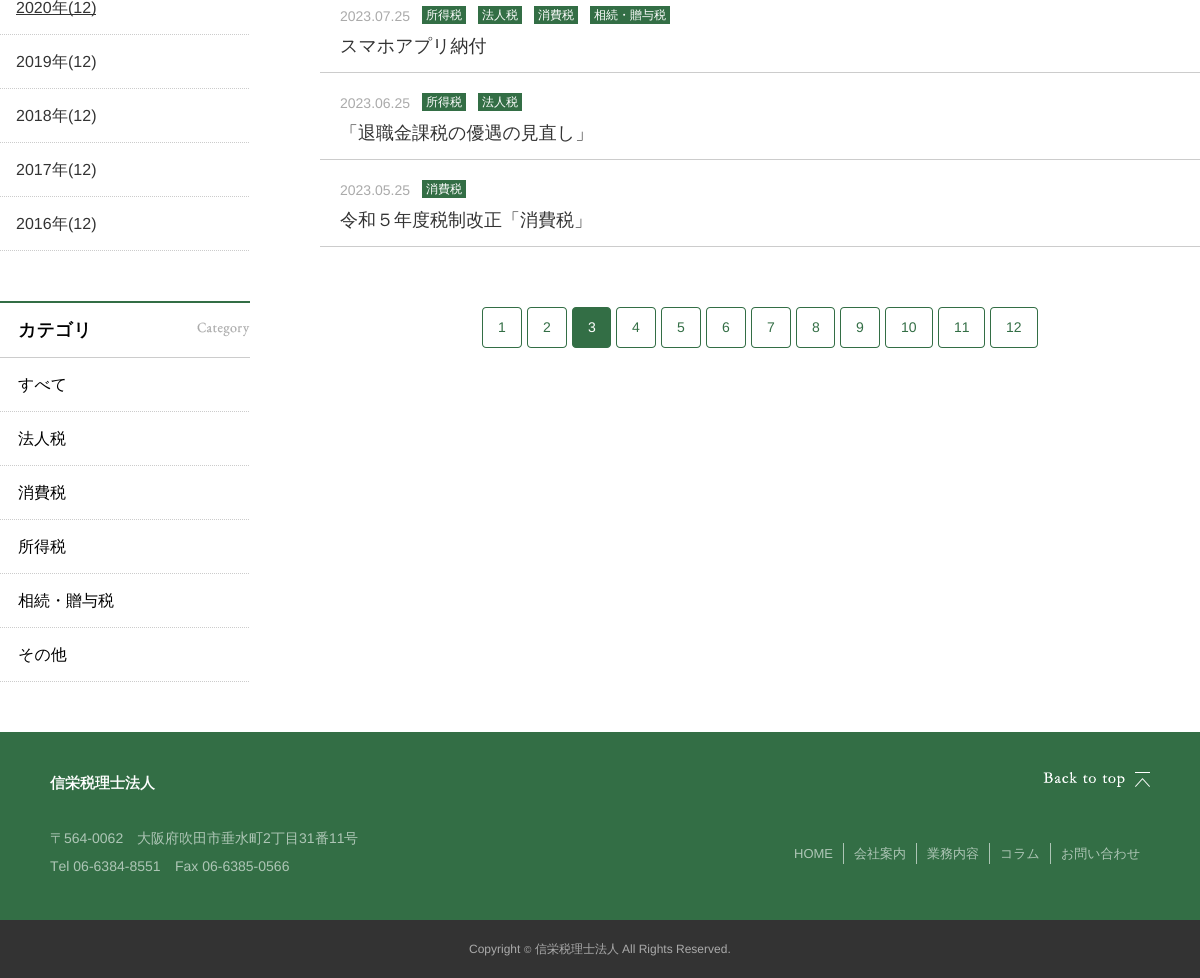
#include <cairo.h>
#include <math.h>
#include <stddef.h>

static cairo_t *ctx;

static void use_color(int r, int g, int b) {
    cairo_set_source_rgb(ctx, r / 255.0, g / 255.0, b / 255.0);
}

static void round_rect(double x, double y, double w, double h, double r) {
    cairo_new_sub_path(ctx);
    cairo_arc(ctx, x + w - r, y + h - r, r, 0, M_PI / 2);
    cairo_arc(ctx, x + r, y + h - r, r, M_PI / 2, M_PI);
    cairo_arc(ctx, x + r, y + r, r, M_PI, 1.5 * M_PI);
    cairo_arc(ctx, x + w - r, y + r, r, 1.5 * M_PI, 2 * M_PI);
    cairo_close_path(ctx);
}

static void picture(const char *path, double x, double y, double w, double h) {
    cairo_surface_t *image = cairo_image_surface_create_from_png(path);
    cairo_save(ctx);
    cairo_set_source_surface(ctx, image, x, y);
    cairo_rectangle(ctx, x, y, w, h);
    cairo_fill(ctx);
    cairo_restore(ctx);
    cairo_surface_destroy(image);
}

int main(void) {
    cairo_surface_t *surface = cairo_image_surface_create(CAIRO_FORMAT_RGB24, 1200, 978);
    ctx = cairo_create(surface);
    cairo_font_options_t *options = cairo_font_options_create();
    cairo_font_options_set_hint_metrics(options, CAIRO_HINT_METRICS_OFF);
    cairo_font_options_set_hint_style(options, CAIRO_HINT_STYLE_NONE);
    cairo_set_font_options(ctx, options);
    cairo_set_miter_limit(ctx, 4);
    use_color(255, 255, 255);
    cairo_paint(ctx);
    cairo_new_path(ctx);
    cairo_move_to(ctx, 0, 34.5);
    cairo_line_to(ctx, 250, 34.5);
    use_color(204, 204, 204);
    cairo_set_line_width(ctx, 1);
    cairo_set_dash(ctx, (double[]){1, 1}, 2, 0);
    cairo_stroke(ctx);
    cairo_select_font_face(ctx, "Liberation Sans", CAIRO_FONT_SLANT_NORMAL, CAIRO_FONT_WEIGHT_NORMAL);
    cairo_set_font_size(ctx, 16);
    use_color(51, 51, 51);
    cairo_move_to(ctx, 16, 13);
    cairo_show_text(ctx, "2020");
    cairo_rectangle(ctx, 16, 14, 80, 1);
    cairo_fill(ctx);
    cairo_select_font_face(ctx, "WenQuanYi Zen Hei Medium", CAIRO_FONT_SLANT_NORMAL, CAIRO_FONT_WEIGHT_NORMAL);
    cairo_move_to(ctx, 52, 13);
    cairo_show_text(ctx, "年");
    cairo_select_font_face(ctx, "Liberation Sans", CAIRO_FONT_SLANT_NORMAL, CAIRO_FONT_WEIGHT_NORMAL);
    cairo_move_to(ctx, 68, 13);
    cairo_show_text(ctx, "(12)");
    cairo_new_path(ctx);
    cairo_move_to(ctx, 0, 88.5);
    cairo_line_to(ctx, 250, 88.5);
    use_color(204, 204, 204);
    cairo_stroke(ctx);
    use_color(51, 51, 51);
    cairo_move_to(ctx, 16, 67);
    cairo_show_text(ctx, "2019");
    cairo_select_font_face(ctx, "WenQuanYi Zen Hei Medium", CAIRO_FONT_SLANT_NORMAL, CAIRO_FONT_WEIGHT_NORMAL);
    cairo_move_to(ctx, 52, 67);
    cairo_show_text(ctx, "年");
    cairo_select_font_face(ctx, "Liberation Sans", CAIRO_FONT_SLANT_NORMAL, CAIRO_FONT_WEIGHT_NORMAL);
    cairo_move_to(ctx, 68, 67);
    cairo_show_text(ctx, "(12)");
    cairo_new_path(ctx);
    cairo_move_to(ctx, 0, 142.5);
    cairo_line_to(ctx, 250, 142.5);
    use_color(204, 204, 204);
    cairo_stroke(ctx);
    use_color(51, 51, 51);
    cairo_move_to(ctx, 16, 121);
    cairo_show_text(ctx, "2018");
    cairo_select_font_face(ctx, "WenQuanYi Zen Hei Medium", CAIRO_FONT_SLANT_NORMAL, CAIRO_FONT_WEIGHT_NORMAL);
    cairo_move_to(ctx, 52, 121);
    cairo_show_text(ctx, "年");
    cairo_select_font_face(ctx, "Liberation Sans", CAIRO_FONT_SLANT_NORMAL, CAIRO_FONT_WEIGHT_NORMAL);
    cairo_move_to(ctx, 68, 121);
    cairo_show_text(ctx, "(12)");
    cairo_new_path(ctx);
    cairo_move_to(ctx, 0, 196.5);
    cairo_line_to(ctx, 250, 196.5);
    use_color(204, 204, 204);
    cairo_stroke(ctx);
    use_color(51, 51, 51);
    cairo_move_to(ctx, 16, 175);
    cairo_show_text(ctx, "2017");
    cairo_select_font_face(ctx, "WenQuanYi Zen Hei Medium", CAIRO_FONT_SLANT_NORMAL, CAIRO_FONT_WEIGHT_NORMAL);
    cairo_move_to(ctx, 52, 175);
    cairo_show_text(ctx, "年");
    cairo_select_font_face(ctx, "Liberation Sans", CAIRO_FONT_SLANT_NORMAL, CAIRO_FONT_WEIGHT_NORMAL);
    cairo_move_to(ctx, 68, 175);
    cairo_show_text(ctx, "(12)");
    cairo_new_path(ctx);
    cairo_move_to(ctx, 0, 250.5);
    cairo_line_to(ctx, 250, 250.5);
    use_color(204, 204, 204);
    cairo_stroke(ctx);
    use_color(51, 51, 51);
    cairo_move_to(ctx, 16, 229);
    cairo_show_text(ctx, "2016");
    cairo_select_font_face(ctx, "WenQuanYi Zen Hei Medium", CAIRO_FONT_SLANT_NORMAL, CAIRO_FONT_WEIGHT_NORMAL);
    cairo_move_to(ctx, 52, 229);
    cairo_show_text(ctx, "年");
    cairo_select_font_face(ctx, "Liberation Sans", CAIRO_FONT_SLANT_NORMAL, CAIRO_FONT_WEIGHT_NORMAL);
    cairo_move_to(ctx, 68, 229);
    cairo_show_text(ctx, "(12)");
    picture("img1.png", 197, 322, 53, 15);
    use_color(51, 110, 69);
    cairo_rectangle(ctx, 0, 301, 250, 2);
    cairo_fill(ctx);
    use_color(204, 204, 204);
    cairo_rectangle(ctx, 0, 357, 250, 1);
    cairo_fill(ctx);
    cairo_select_font_face(ctx, "WenQuanYi Zen Hei", CAIRO_FONT_SLANT_NORMAL, CAIRO_FONT_WEIGHT_BOLD);
    cairo_set_font_size(ctx, 18);
    use_color(0, 0, 0);
    cairo_move_to(ctx, 18, 336);
    cairo_show_text(ctx, "カテゴリ");
    cairo_new_path(ctx);
    cairo_move_to(ctx, 0, 411.5);
    cairo_line_to(ctx, 250, 411.5);
    use_color(204, 204, 204);
    cairo_stroke(ctx);
    cairo_select_font_face(ctx, "WenQuanYi Zen Hei Medium", CAIRO_FONT_SLANT_NORMAL, CAIRO_FONT_WEIGHT_NORMAL);
    cairo_set_font_size(ctx, 16);
    use_color(0, 0, 0);
    cairo_move_to(ctx, 18, 390);
    cairo_show_text(ctx, "すべて");
    cairo_new_path(ctx);
    cairo_move_to(ctx, 0, 465.5);
    cairo_line_to(ctx, 250, 465.5);
    use_color(204, 204, 204);
    cairo_stroke(ctx);
    use_color(0, 0, 0);
    cairo_move_to(ctx, 18, 444);
    cairo_show_text(ctx, "法人税");
    cairo_new_path(ctx);
    cairo_move_to(ctx, 0, 519.5);
    cairo_line_to(ctx, 250, 519.5);
    use_color(204, 204, 204);
    cairo_stroke(ctx);
    use_color(0, 0, 0);
    cairo_move_to(ctx, 18, 498);
    cairo_show_text(ctx, "消費税");
    cairo_new_path(ctx);
    cairo_move_to(ctx, 0, 573.5);
    cairo_line_to(ctx, 250, 573.5);
    use_color(204, 204, 204);
    cairo_stroke(ctx);
    use_color(0, 0, 0);
    cairo_move_to(ctx, 18, 552);
    cairo_show_text(ctx, "所得税");
    cairo_new_path(ctx);
    cairo_move_to(ctx, 0, 627.5);
    cairo_line_to(ctx, 250, 627.5);
    use_color(204, 204, 204);
    cairo_stroke(ctx);
    use_color(0, 0, 0);
    cairo_move_to(ctx, 18, 606);
    cairo_show_text(ctx, "相続・贈与税");
    cairo_new_path(ctx);
    cairo_move_to(ctx, 0, 681.5);
    cairo_line_to(ctx, 250, 681.5);
    use_color(204, 204, 204);
    cairo_stroke(ctx);
    use_color(0, 0, 0);
    cairo_move_to(ctx, 18, 660);
    cairo_show_text(ctx, "その他");
    use_color(204, 204, 204);
    cairo_rectangle(ctx, 320, 72, 880, 1);
    cairo_fill(ctx);
    cairo_select_font_face(ctx, "Liberation Sans", CAIRO_FONT_SLANT_NORMAL, CAIRO_FONT_WEIGHT_NORMAL);
    cairo_set_font_size(ctx, 14);
    use_color(170, 170, 170);
    cairo_move_to(ctx, 340, 21);
    cairo_show_text(ctx, "2023.07.25");
    use_color(51, 110, 69);
    cairo_rectangle(ctx, 422, 6, 44, 18);
    cairo_fill(ctx);
    cairo_select_font_face(ctx, "WenQuanYi Zen Hei Medium", CAIRO_FONT_SLANT_NORMAL, CAIRO_FONT_WEIGHT_NORMAL);
    cairo_set_font_size(ctx, 12);
    use_color(255, 255, 255);
    cairo_move_to(ctx, 426, 19);
    cairo_show_text(ctx, "所得税");
    use_color(51, 110, 69);
    cairo_rectangle(ctx, 478, 6, 44, 18);
    cairo_fill(ctx);
    use_color(255, 255, 255);
    cairo_move_to(ctx, 482, 19);
    cairo_show_text(ctx, "法人税");
    use_color(51, 110, 69);
    cairo_rectangle(ctx, 534, 6, 44, 18);
    cairo_fill(ctx);
    use_color(255, 255, 255);
    cairo_move_to(ctx, 538, 19);
    cairo_show_text(ctx, "消費税");
    use_color(51, 110, 69);
    cairo_rectangle(ctx, 590, 6, 80, 18);
    cairo_fill(ctx);
    use_color(255, 255, 255);
    cairo_move_to(ctx, 594, 19);
    cairo_show_text(ctx, "相続・贈与税");
    cairo_set_font_size(ctx, 18);
    use_color(51, 51, 51);
    cairo_move_to(ctx, 340, 52);
    cairo_show_text(ctx, "スマホアプリ納付");
    use_color(204, 204, 204);
    cairo_rectangle(ctx, 320, 159, 880, 1);
    cairo_fill(ctx);
    cairo_select_font_face(ctx, "Liberation Sans", CAIRO_FONT_SLANT_NORMAL, CAIRO_FONT_WEIGHT_NORMAL);
    cairo_set_font_size(ctx, 14);
    use_color(170, 170, 170);
    cairo_move_to(ctx, 340, 108);
    cairo_show_text(ctx, "2023.06.25");
    use_color(51, 110, 69);
    cairo_rectangle(ctx, 422, 93, 44, 18);
    cairo_fill(ctx);
    cairo_select_font_face(ctx, "WenQuanYi Zen Hei Medium", CAIRO_FONT_SLANT_NORMAL, CAIRO_FONT_WEIGHT_NORMAL);
    cairo_set_font_size(ctx, 12);
    use_color(255, 255, 255);
    cairo_move_to(ctx, 426, 106);
    cairo_show_text(ctx, "所得税");
    use_color(51, 110, 69);
    cairo_rectangle(ctx, 478, 93, 44, 18);
    cairo_fill(ctx);
    use_color(255, 255, 255);
    cairo_move_to(ctx, 482, 106);
    cairo_show_text(ctx, "法人税");
    cairo_set_font_size(ctx, 18);
    use_color(51, 51, 51);
    cairo_move_to(ctx, 340, 139);
    cairo_show_text(ctx, "「退職金課税の優遇の見直し」");
    use_color(204, 204, 204);
    cairo_rectangle(ctx, 320, 246, 880, 1);
    cairo_fill(ctx);
    cairo_select_font_face(ctx, "Liberation Sans", CAIRO_FONT_SLANT_NORMAL, CAIRO_FONT_WEIGHT_NORMAL);
    cairo_set_font_size(ctx, 14);
    use_color(170, 170, 170);
    cairo_move_to(ctx, 340, 195);
    cairo_show_text(ctx, "2023.05.25");
    use_color(51, 110, 69);
    cairo_rectangle(ctx, 422, 180, 44, 18);
    cairo_fill(ctx);
    cairo_select_font_face(ctx, "WenQuanYi Zen Hei Medium", CAIRO_FONT_SLANT_NORMAL, CAIRO_FONT_WEIGHT_NORMAL);
    cairo_set_font_size(ctx, 12);
    use_color(255, 255, 255);
    cairo_move_to(ctx, 426, 193);
    cairo_show_text(ctx, "消費税");
    cairo_set_font_size(ctx, 18);
    use_color(51, 51, 51);
    cairo_move_to(ctx, 340, 226);
    cairo_show_text(ctx, "令和５年度税制改正「消費税」");
    round_rect(482.5, 307.5, 39, 40, 3.5);
    use_color(51, 110, 69);
    cairo_set_dash(ctx, NULL, 0, 0);
    cairo_stroke(ctx);
    cairo_select_font_face(ctx, "Liberation Sans", CAIRO_FONT_SLANT_NORMAL, CAIRO_FONT_WEIGHT_NORMAL);
    cairo_set_font_size(ctx, 14);
    cairo_move_to(ctx, 498, 332);
    cairo_show_text(ctx, "1");
    round_rect(527.5, 307.5, 39, 40, 3.5);
    cairo_stroke(ctx);
    cairo_move_to(ctx, 543, 332);
    cairo_show_text(ctx, "2");
    round_rect(572.5, 307.5, 38, 40, 3.5);
    cairo_fill_preserve(ctx);
    cairo_stroke(ctx);
    use_color(255, 255, 255);
    cairo_move_to(ctx, 588, 332);
    cairo_show_text(ctx, "3");
    round_rect(616.5, 307.5, 39, 40, 3.5);
    use_color(51, 110, 69);
    cairo_stroke(ctx);
    cairo_move_to(ctx, 632, 332);
    cairo_show_text(ctx, "4");
    round_rect(661.5, 307.5, 39, 40, 3.5);
    cairo_stroke(ctx);
    cairo_move_to(ctx, 677, 332);
    cairo_show_text(ctx, "5");
    round_rect(706.5, 307.5, 39, 40, 3.5);
    cairo_stroke(ctx);
    cairo_move_to(ctx, 722, 332);
    cairo_show_text(ctx, "6");
    round_rect(751.5, 307.5, 39, 40, 3.5);
    cairo_stroke(ctx);
    cairo_move_to(ctx, 767, 332);
    cairo_show_text(ctx, "7");
    round_rect(796.5, 307.5, 38, 40, 3.5);
    cairo_stroke(ctx);
    cairo_move_to(ctx, 812, 332);
    cairo_show_text(ctx, "8");
    round_rect(840.5, 307.5, 39, 40, 3.5);
    cairo_stroke(ctx);
    cairo_move_to(ctx, 856, 332);
    cairo_show_text(ctx, "9");
    round_rect(885.5, 307.5, 47, 40, 3.5);
    cairo_stroke(ctx);
    cairo_move_to(ctx, 901, 332);
    cairo_show_text(ctx, "10");
    round_rect(938.5, 307.5, 46, 40, 3.5);
    cairo_stroke(ctx);
    cairo_move_to(ctx, 954, 332);
    cairo_show_text(ctx, "11");
    round_rect(990.5, 307.5, 47, 40, 3.5);
    cairo_stroke(ctx);
    cairo_move_to(ctx, 1006, 332);
    cairo_show_text(ctx, "12");
    cairo_rectangle(ctx, 0, 732, 1200, 188);
    cairo_fill(ctx);
    cairo_select_font_face(ctx, "WenQuanYi Zen Hei", CAIRO_FONT_SLANT_NORMAL, CAIRO_FONT_WEIGHT_BOLD);
    cairo_set_font_size(ctx, 15);
    use_color(255, 255, 255);
    cairo_move_to(ctx, 50, 788);
    cairo_show_text(ctx, "信栄税理士法人");
    cairo_select_font_face(ctx, "WenQuanYi Zen Hei Medium", CAIRO_FONT_SLANT_NORMAL, CAIRO_FONT_WEIGHT_NORMAL);
    cairo_set_font_size(ctx, 14);
    use_color(173, 197, 181);
    cairo_move_to(ctx, 50, 843);
    cairo_show_text(ctx, "〒");
    cairo_select_font_face(ctx, "Liberation Sans", CAIRO_FONT_SLANT_NORMAL, CAIRO_FONT_WEIGHT_NORMAL);
    cairo_move_to(ctx, 64, 843);
    cairo_show_text(ctx, "564-0062");
    cairo_select_font_face(ctx, "WenQuanYi Zen Hei Medium", CAIRO_FONT_SLANT_NORMAL, CAIRO_FONT_WEIGHT_NORMAL);
    cairo_move_to(ctx, 137, 843);
    cairo_show_text(ctx, "大阪府吹田市垂水町");
    cairo_select_font_face(ctx, "Liberation Sans", CAIRO_FONT_SLANT_NORMAL, CAIRO_FONT_WEIGHT_NORMAL);
    cairo_move_to(ctx, 263, 843);
    cairo_show_text(ctx, "2");
    cairo_select_font_face(ctx, "WenQuanYi Zen Hei Medium", CAIRO_FONT_SLANT_NORMAL, CAIRO_FONT_WEIGHT_NORMAL);
    cairo_move_to(ctx, 271, 843);
    cairo_show_text(ctx, "丁目");
    cairo_select_font_face(ctx, "Liberation Sans", CAIRO_FONT_SLANT_NORMAL, CAIRO_FONT_WEIGHT_NORMAL);
    cairo_move_to(ctx, 299, 843);
    cairo_show_text(ctx, "31");
    cairo_select_font_face(ctx, "WenQuanYi Zen Hei Medium", CAIRO_FONT_SLANT_NORMAL, CAIRO_FONT_WEIGHT_NORMAL);
    cairo_move_to(ctx, 315, 843);
    cairo_show_text(ctx, "番");
    cairo_select_font_face(ctx, "Liberation Sans", CAIRO_FONT_SLANT_NORMAL, CAIRO_FONT_WEIGHT_NORMAL);
    cairo_move_to(ctx, 329, 843);
    cairo_show_text(ctx, "11");
    cairo_select_font_face(ctx, "WenQuanYi Zen Hei Medium", CAIRO_FONT_SLANT_NORMAL, CAIRO_FONT_WEIGHT_NORMAL);
    cairo_move_to(ctx, 344, 843);
    cairo_show_text(ctx, "号");
    cairo_select_font_face(ctx, "Liberation Sans", CAIRO_FONT_SLANT_NORMAL, CAIRO_FONT_WEIGHT_NORMAL);
    cairo_move_to(ctx, 50, 871);
    cairo_show_text(ctx, "Tel 06-6384-8551");
    cairo_move_to(ctx, 175, 871);
    cairo_show_text(ctx, "Fax 06-6385-0566");
    picture("img2.png", 1043, 772, 107, 15);
    cairo_rectangle(ctx, 843, 843, 1, 21);
    cairo_fill(ctx);
    cairo_set_font_size(ctx, 13);
    cairo_move_to(ctx, 794, 858);
    cairo_show_text(ctx, "HOME");
    cairo_rectangle(ctx, 916, 843, 1, 21);
    cairo_fill(ctx);
    cairo_select_font_face(ctx, "WenQuanYi Zen Hei Medium", CAIRO_FONT_SLANT_NORMAL, CAIRO_FONT_WEIGHT_NORMAL);
    cairo_move_to(ctx, 854, 858);
    cairo_show_text(ctx, "会社案内");
    cairo_rectangle(ctx, 989, 843, 1, 21);
    cairo_fill(ctx);
    cairo_move_to(ctx, 927, 858);
    cairo_show_text(ctx, "業務内容");
    cairo_rectangle(ctx, 1050, 843, 1, 21);
    cairo_fill(ctx);
    cairo_move_to(ctx, 1000, 858);
    cairo_show_text(ctx, "コラム");
    cairo_move_to(ctx, 1061, 858);
    cairo_show_text(ctx, "お問い合わせ");
    use_color(51, 51, 51);
    cairo_rectangle(ctx, 0, 920, 1200, 58);
    cairo_fill(ctx);
    cairo_select_font_face(ctx, "Liberation Sans", CAIRO_FONT_SLANT_NORMAL, CAIRO_FONT_WEIGHT_NORMAL);
    cairo_set_font_size(ctx, 12);
    use_color(170, 170, 170);
    cairo_move_to(ctx, 469, 953);
    cairo_show_text(ctx, "Copyright");
    cairo_set_font_size(ctx, 10);
    cairo_move_to(ctx, 524, 953);
    cairo_show_text(ctx, "©");
    cairo_select_font_face(ctx, "WenQuanYi Zen Hei Medium", CAIRO_FONT_SLANT_NORMAL, CAIRO_FONT_WEIGHT_NORMAL);
    cairo_set_font_size(ctx, 12);
    cairo_move_to(ctx, 535, 953);
    cairo_show_text(ctx, "信栄税理士法人");
    cairo_select_font_face(ctx, "Liberation Sans", CAIRO_FONT_SLANT_NORMAL, CAIRO_FONT_WEIGHT_NORMAL);
    cairo_move_to(ctx, 622, 953);
    cairo_show_text(ctx, "All Rights Reserved.");
    cairo_surface_write_to_png(surface, "result.png");
    cairo_font_options_destroy(options);
    cairo_destroy(ctx);
    cairo_surface_destroy(surface);
    return 0;
}
